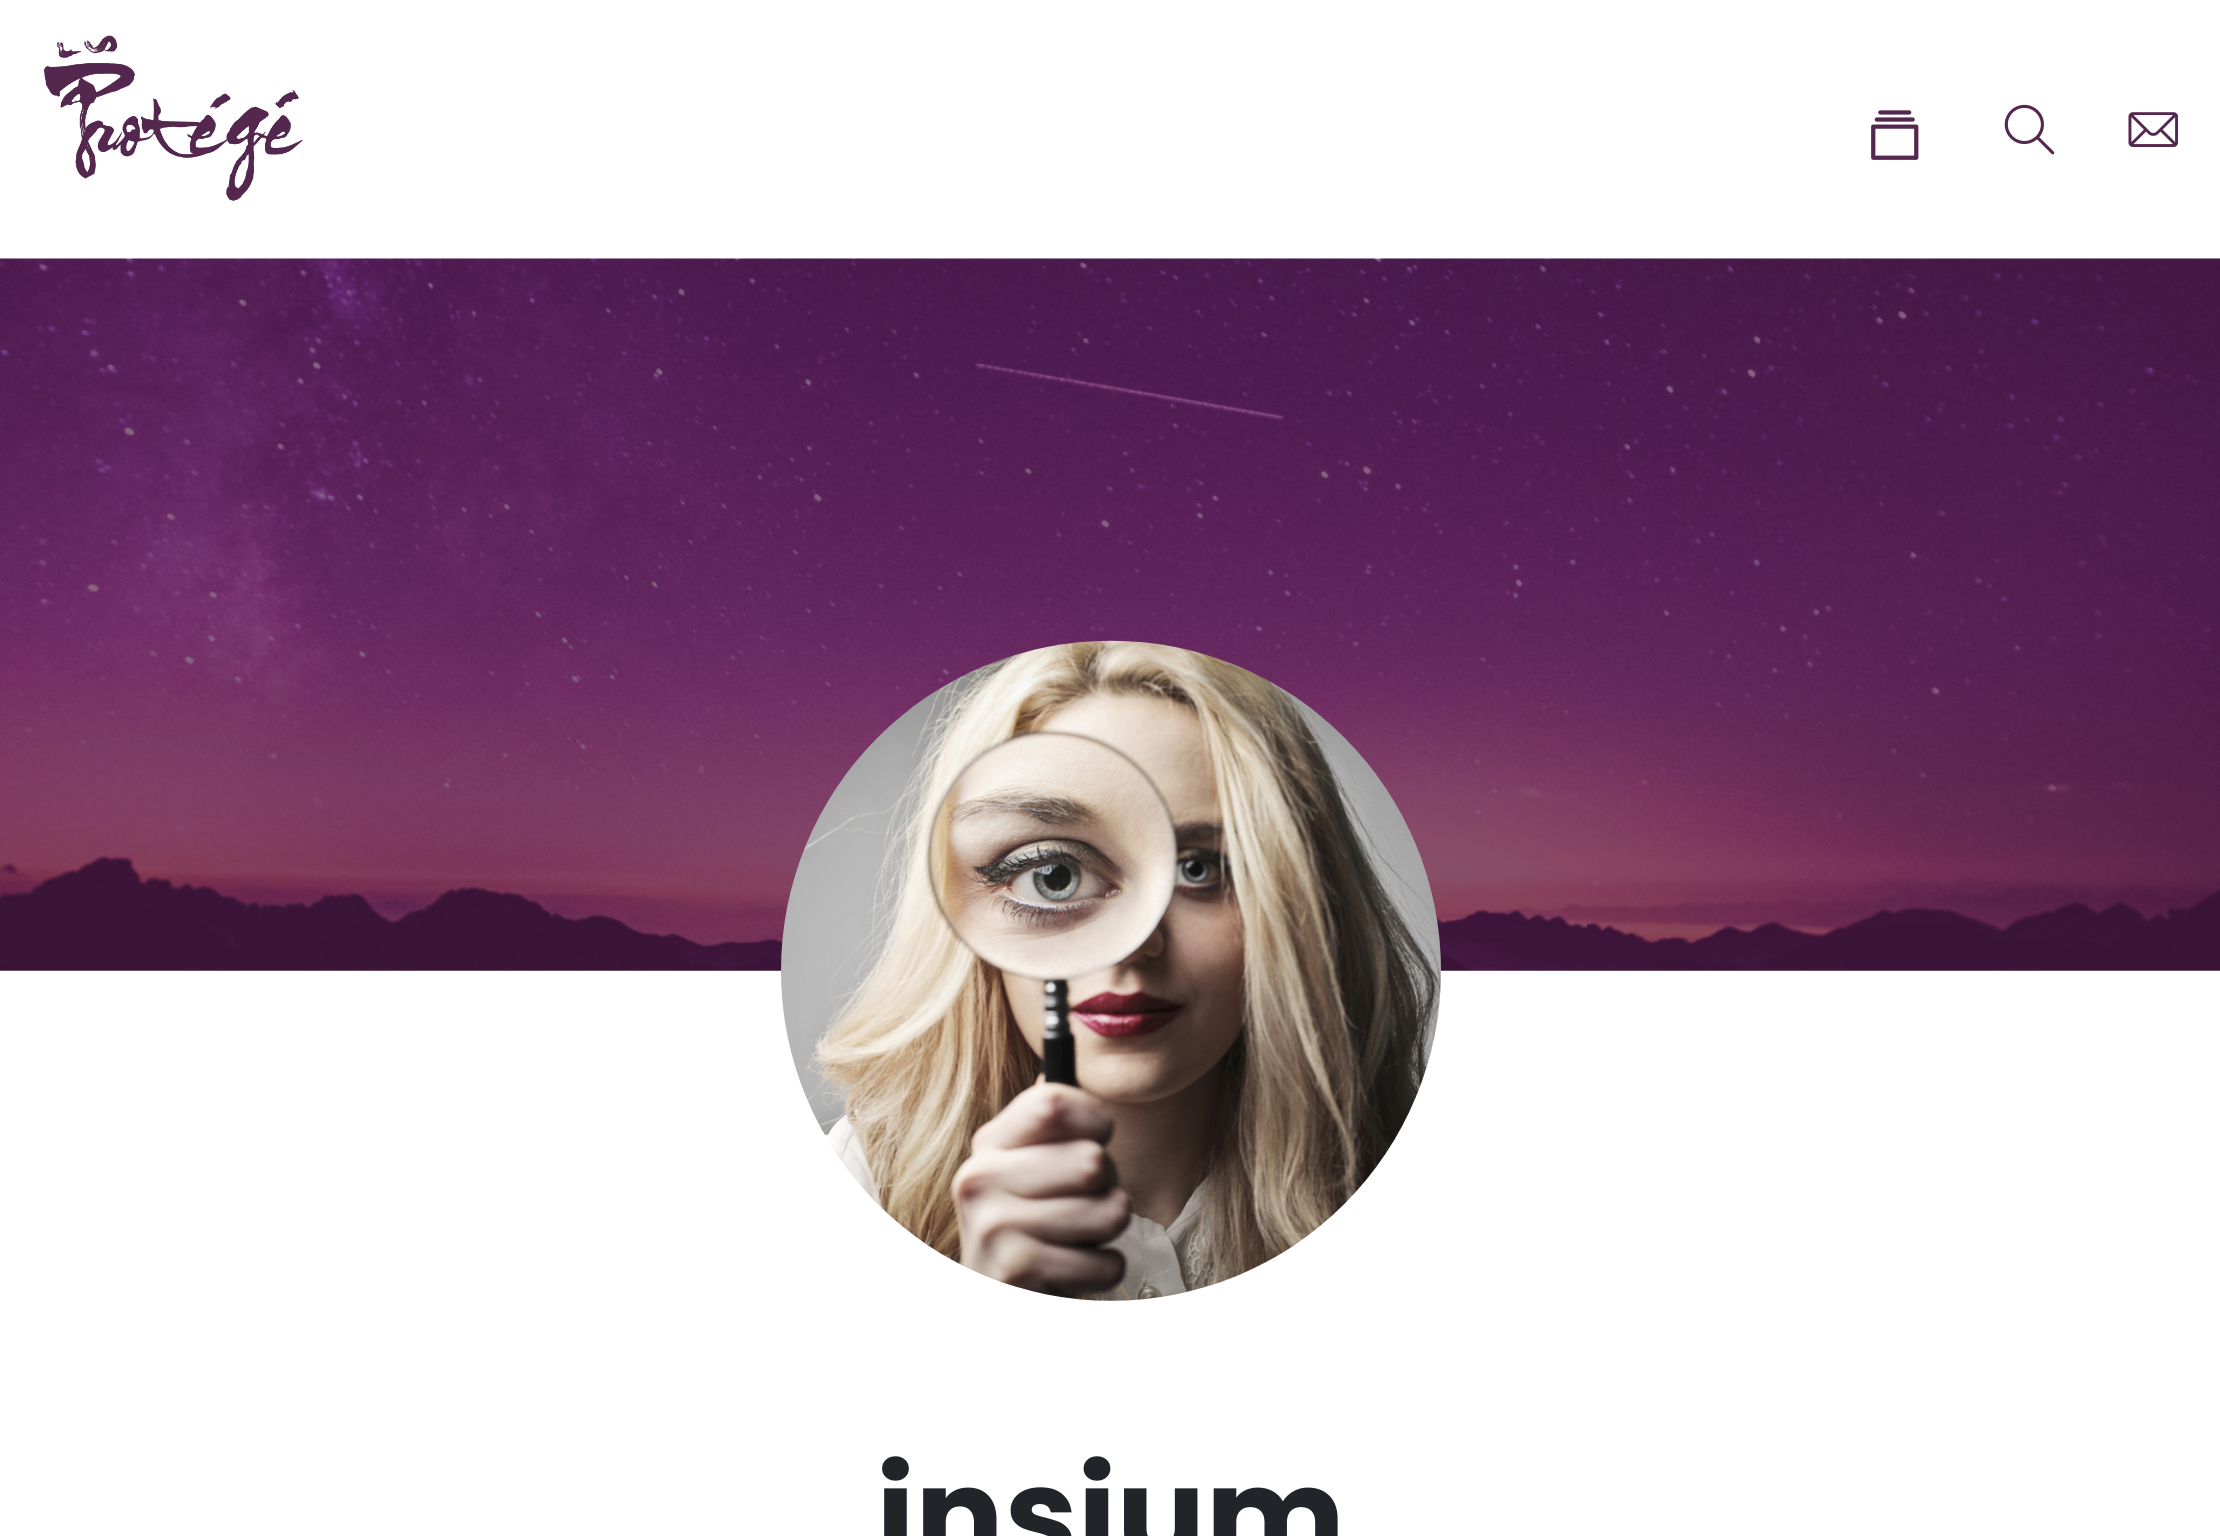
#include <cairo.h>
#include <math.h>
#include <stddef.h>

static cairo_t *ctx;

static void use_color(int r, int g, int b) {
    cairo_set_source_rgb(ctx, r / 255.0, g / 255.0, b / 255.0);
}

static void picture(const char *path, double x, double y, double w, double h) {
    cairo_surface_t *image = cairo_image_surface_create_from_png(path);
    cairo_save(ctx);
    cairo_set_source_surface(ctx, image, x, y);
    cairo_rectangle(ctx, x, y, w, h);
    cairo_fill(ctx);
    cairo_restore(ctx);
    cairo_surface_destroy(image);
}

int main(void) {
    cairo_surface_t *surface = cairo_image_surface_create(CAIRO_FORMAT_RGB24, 2220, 1536);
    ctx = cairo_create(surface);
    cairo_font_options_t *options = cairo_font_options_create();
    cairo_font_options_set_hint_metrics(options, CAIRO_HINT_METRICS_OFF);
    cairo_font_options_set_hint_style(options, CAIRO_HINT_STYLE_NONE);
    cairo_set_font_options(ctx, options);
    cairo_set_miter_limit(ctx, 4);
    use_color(255, 255, 255);
    cairo_paint(ctx);
    picture("img1.png", 44, 35, 259, 166);
    picture("img2.png", 1871, 110, 48, 50);
    picture("img3.png", 2004, 104, 51, 51);
    picture("img4.png", 2128, 112, 50, 35);
    picture("img5.png", 0, 258, 2220, 713);
    picture("img6.png", 781, 640, 660, 661);
    cairo_select_font_face(ctx, "Poppins", CAIRO_FONT_SLANT_NORMAL, CAIRO_FONT_WEIGHT_BOLD);
    cairo_set_font_size(ctx, 132);
    use_color(33, 37, 41);
    cairo_move_to(ctx, 876, 1562);
    cairo_show_text(ctx, "insium");
    cairo_surface_write_to_png(surface, "result.png");
    cairo_font_options_destroy(options);
    cairo_destroy(ctx);
    cairo_surface_destroy(surface);
    return 0;
}
